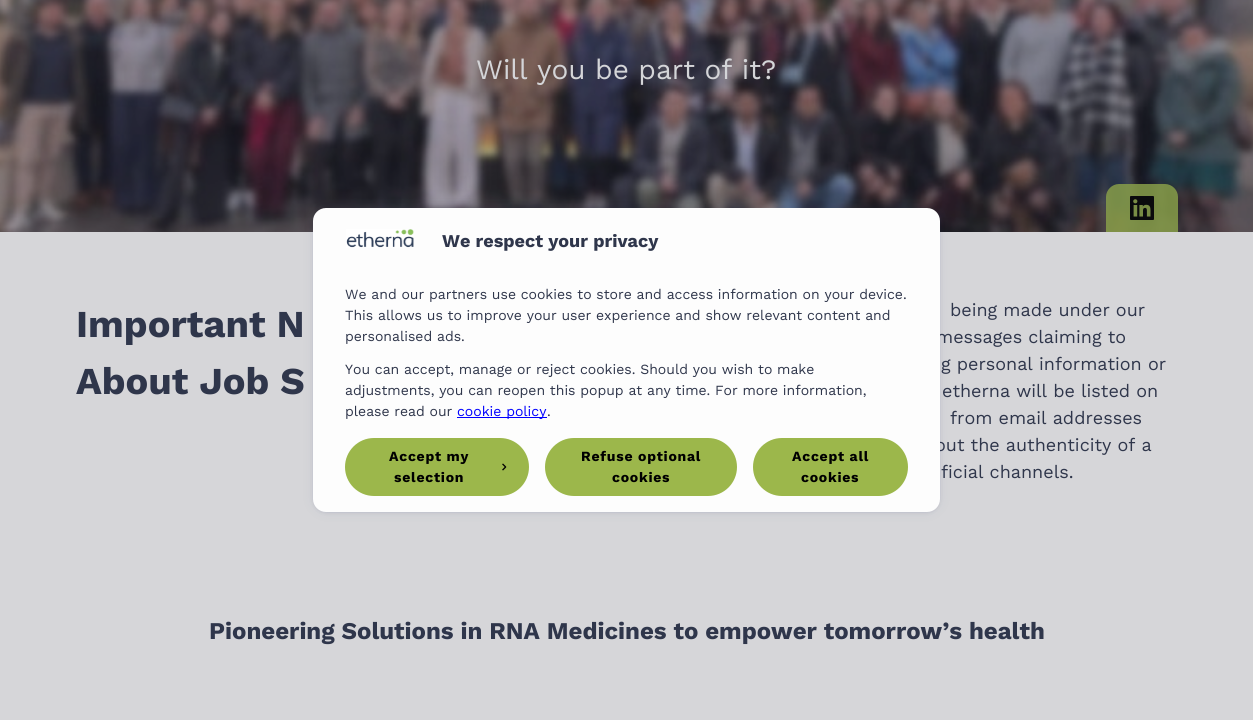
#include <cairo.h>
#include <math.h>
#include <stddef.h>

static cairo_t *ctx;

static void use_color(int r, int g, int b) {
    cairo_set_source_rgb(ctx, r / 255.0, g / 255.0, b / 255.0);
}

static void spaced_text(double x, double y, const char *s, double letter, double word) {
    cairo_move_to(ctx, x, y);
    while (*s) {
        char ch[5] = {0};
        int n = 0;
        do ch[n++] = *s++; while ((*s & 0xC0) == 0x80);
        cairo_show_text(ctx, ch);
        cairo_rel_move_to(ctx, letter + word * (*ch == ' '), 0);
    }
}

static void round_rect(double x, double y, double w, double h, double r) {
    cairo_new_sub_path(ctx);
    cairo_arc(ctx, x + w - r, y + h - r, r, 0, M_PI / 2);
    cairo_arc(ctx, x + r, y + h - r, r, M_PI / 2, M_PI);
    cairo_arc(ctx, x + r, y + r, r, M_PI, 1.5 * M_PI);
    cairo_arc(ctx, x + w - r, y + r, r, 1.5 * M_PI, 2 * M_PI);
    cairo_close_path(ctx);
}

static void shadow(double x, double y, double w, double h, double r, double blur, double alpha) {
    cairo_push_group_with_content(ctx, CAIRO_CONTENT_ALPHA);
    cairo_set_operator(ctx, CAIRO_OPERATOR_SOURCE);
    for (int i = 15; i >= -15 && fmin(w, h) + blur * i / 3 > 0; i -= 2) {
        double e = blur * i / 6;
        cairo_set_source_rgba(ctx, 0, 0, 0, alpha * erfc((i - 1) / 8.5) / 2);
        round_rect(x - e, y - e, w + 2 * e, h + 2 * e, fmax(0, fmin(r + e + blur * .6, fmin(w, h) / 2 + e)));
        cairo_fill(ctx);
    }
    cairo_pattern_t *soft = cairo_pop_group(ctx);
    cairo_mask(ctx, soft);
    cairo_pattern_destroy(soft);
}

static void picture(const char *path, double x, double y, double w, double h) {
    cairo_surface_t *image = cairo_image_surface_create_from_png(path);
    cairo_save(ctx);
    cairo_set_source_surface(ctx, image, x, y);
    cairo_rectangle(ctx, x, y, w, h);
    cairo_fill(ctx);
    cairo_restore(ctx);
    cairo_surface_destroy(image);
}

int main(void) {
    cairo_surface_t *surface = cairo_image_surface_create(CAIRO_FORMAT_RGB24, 1253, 720);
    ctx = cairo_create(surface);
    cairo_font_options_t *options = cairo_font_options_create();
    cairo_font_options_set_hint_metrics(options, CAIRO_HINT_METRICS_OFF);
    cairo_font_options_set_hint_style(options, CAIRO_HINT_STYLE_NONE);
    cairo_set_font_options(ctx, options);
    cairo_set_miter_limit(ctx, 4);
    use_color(214, 214, 217);
    cairo_paint(ctx);
    picture("img1.png", 0, 0, 1253, 232);
    cairo_select_font_face(ctx, "Work Sans", CAIRO_FONT_SLANT_NORMAL, CAIRO_FONT_WEIGHT_NORMAL);
    cairo_set_font_size(ctx, 28);
    use_color(212, 213, 216);
    cairo_move_to(ctx, 476, 79);
    cairo_show_text(ctx, "Will you be part of it?");
    cairo_set_source_rgba(ctx, 0.529, 0.616, 0.286, 0.85);
    cairo_new_path(ctx);
    cairo_move_to(ctx, 1119, 184);
    cairo_line_to(ctx, 1165, 184);
    cairo_curve_to(ctx, 1172, 184, 1178, 190, 1178, 197);
    cairo_line_to(ctx, 1178, 232);
    cairo_line_to(ctx, 1106, 232);
    cairo_line_to(ctx, 1106, 197);
    cairo_curve_to(ctx, 1106, 190, 1112, 184, 1119, 184);
    cairo_close_path(ctx);
    cairo_fill(ctx);
    picture("img2.png", 1130, 196, 24, 24);
    cairo_select_font_face(ctx, "Work Sans", CAIRO_FONT_SLANT_NORMAL, CAIRO_FONT_WEIGHT_BOLD);
    cairo_set_font_size(ctx, 38);
    use_color(47, 54, 75);
    cairo_move_to(ctx, 76, 337);
    cairo_show_text(ctx, "Important N");
    cairo_move_to(ctx, 76, 394);
    cairo_show_text(ctx, "About Job S");
    cairo_select_font_face(ctx, "Work Sans", CAIRO_FONT_SLANT_NORMAL, CAIRO_FONT_WEIGHT_NORMAL);
    cairo_set_font_size(ctx, 18);
    cairo_move_to(ctx, 950, 316);
    cairo_show_text(ctx, "being made under our");
    cairo_move_to(ctx, 936, 343);
    cairo_show_text(ctx, "messages claiming to");
    cairo_move_to(ctx, 941, 370);
    cairo_show_text(ctx, "g personal information or");
    cairo_move_to(ctx, 942, 397);
    cairo_show_text(ctx, "etherna will be listed on");
    cairo_move_to(ctx, 950, 424);
    cairo_show_text(ctx, "from email addresses");
    cairo_move_to(ctx, 935, 451);
    cairo_show_text(ctx, "out the authenticity of a");
    cairo_move_to(ctx, 941, 478);
    cairo_show_text(ctx, "ficial channels.");
    cairo_select_font_face(ctx, "Work Sans", CAIRO_FONT_SLANT_NORMAL, CAIRO_FONT_WEIGHT_BOLD);
    cairo_set_font_size(ctx, 24);
    cairo_move_to(ctx, 209, 639);
    cairo_show_text(ctx, "Pioneering Solutions in RNA Medicines to empower tomorrow’s health");
    use_color(51, 64, 118);
    shadow(313, 209, 627, 304, 13, 1.5, 0.09);
    shadow(313, 208, 627, 304, 13, 5.5, 0.1);
    use_color(253, 253, 253);
    round_rect(313, 208, 627, 304, 13);
    cairo_fill(ctx);
    picture("img3.png", 346, 229, 68, 19);
    cairo_set_font_size(ctx, 18);
    use_color(47, 54, 75);
    cairo_move_to(ctx, 442, 247);
    cairo_show_text(ctx, "We respect your privacy");
    cairo_select_font_face(ctx, "Work Sans", CAIRO_FONT_SLANT_NORMAL, CAIRO_FONT_WEIGHT_NORMAL);
    cairo_set_font_size(ctx, 14);
    cairo_move_to(ctx, 345, 299);
    cairo_show_text(ctx, "We and our partners use cookies to store and access information on your device.");
    cairo_move_to(ctx, 345, 320);
    cairo_show_text(ctx, "This allows us to improve your user experience and show relevant content and");
    cairo_move_to(ctx, 345, 341);
    cairo_show_text(ctx, "personalised ads.");
    cairo_move_to(ctx, 345, 374);
    cairo_show_text(ctx, "You can accept, manage or reject cookies. Should you wish to make");
    cairo_move_to(ctx, 345, 395);
    cairo_show_text(ctx, "adjustments, you can reopen this popup at any time. For more information,");
    cairo_move_to(ctx, 345, 416);
    cairo_show_text(ctx, "please read our");
    use_color(0, 0, 255);
    cairo_rectangle(ctx, 457, 417, 90, 1);
    cairo_fill(ctx);
    cairo_move_to(ctx, 457, 416);
    cairo_show_text(ctx, "cookie policy");
    use_color(47, 54, 75);
    cairo_move_to(ctx, 547, 416);
    cairo_show_text(ctx, ".");
    use_color(156, 183, 75);
    round_rect(345, 438, 184, 58, 29);
    cairo_fill(ctx);
    cairo_select_font_face(ctx, "Work Sans", CAIRO_FONT_SLANT_NORMAL, CAIRO_FONT_WEIGHT_BOLD);
    use_color(0, 0, 0);
    spaced_text(389, 461, "Accept my", 0.75, 0);
    spaced_text(394, 482, "selection", 0.75, 0);
    picture("img4.png", 502, 463, 5, 8);
    use_color(156, 183, 75);
    round_rect(545, 438, 192, 58, 29);
    cairo_fill(ctx);
    use_color(0, 0, 0);
    spaced_text(581, 461, "Refuse optional", 0.75, 0);
    spaced_text(612, 482, "cookies", 0.75, 0);
    use_color(156, 183, 75);
    round_rect(753, 438, 155, 58, 29);
    cairo_fill(ctx);
    use_color(0, 0, 0);
    spaced_text(792, 461, "Accept all", 0.75, 0);
    spaced_text(801, 482, "cookies", 0.75, 0);
    cairo_surface_write_to_png(surface, "result.png");
    cairo_font_options_destroy(options);
    cairo_destroy(ctx);
    cairo_surface_destroy(surface);
    return 0;
}
